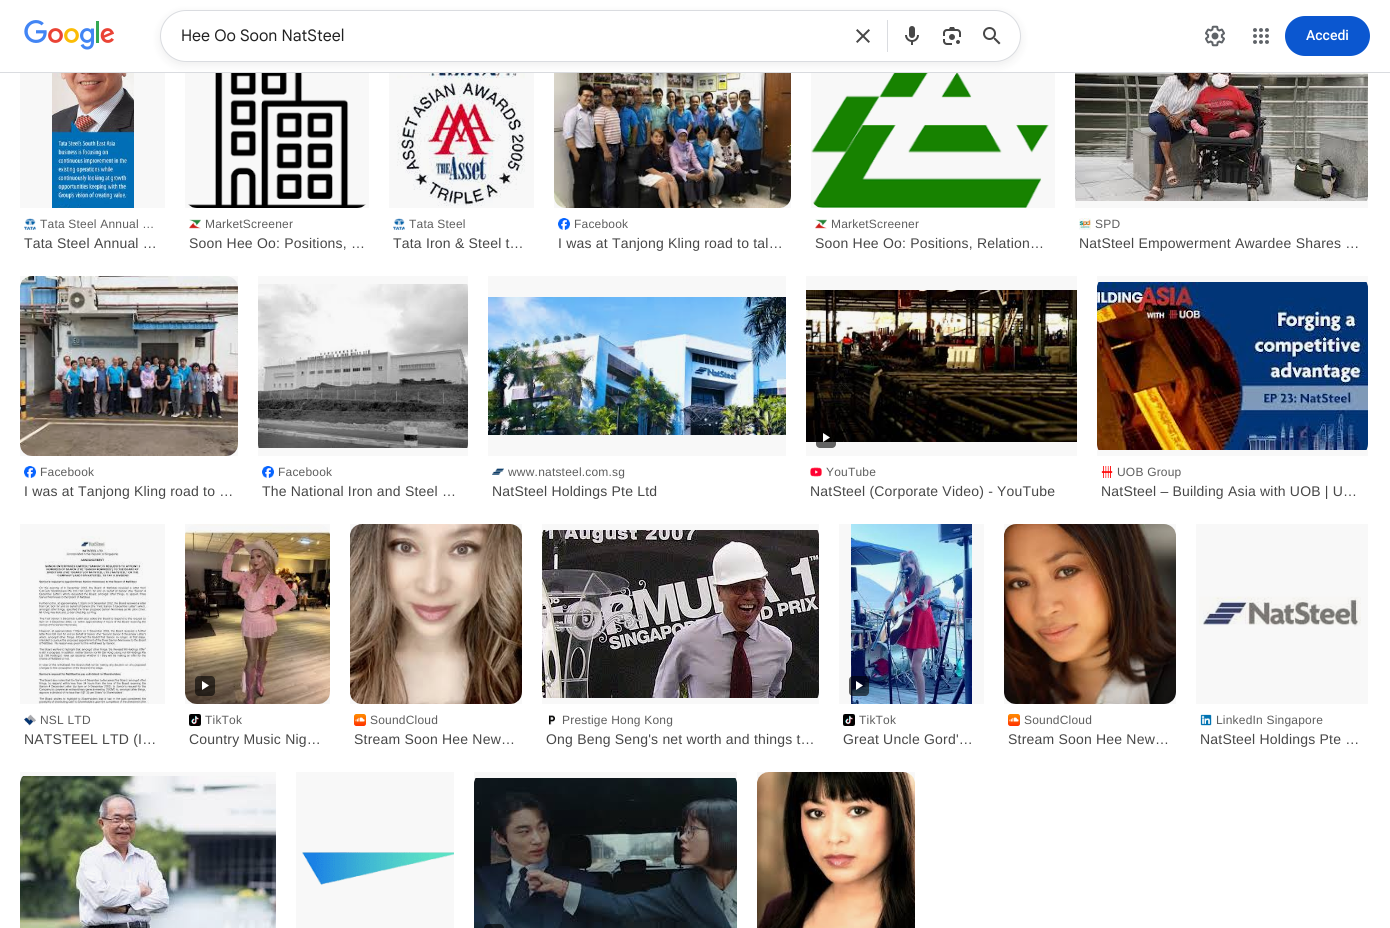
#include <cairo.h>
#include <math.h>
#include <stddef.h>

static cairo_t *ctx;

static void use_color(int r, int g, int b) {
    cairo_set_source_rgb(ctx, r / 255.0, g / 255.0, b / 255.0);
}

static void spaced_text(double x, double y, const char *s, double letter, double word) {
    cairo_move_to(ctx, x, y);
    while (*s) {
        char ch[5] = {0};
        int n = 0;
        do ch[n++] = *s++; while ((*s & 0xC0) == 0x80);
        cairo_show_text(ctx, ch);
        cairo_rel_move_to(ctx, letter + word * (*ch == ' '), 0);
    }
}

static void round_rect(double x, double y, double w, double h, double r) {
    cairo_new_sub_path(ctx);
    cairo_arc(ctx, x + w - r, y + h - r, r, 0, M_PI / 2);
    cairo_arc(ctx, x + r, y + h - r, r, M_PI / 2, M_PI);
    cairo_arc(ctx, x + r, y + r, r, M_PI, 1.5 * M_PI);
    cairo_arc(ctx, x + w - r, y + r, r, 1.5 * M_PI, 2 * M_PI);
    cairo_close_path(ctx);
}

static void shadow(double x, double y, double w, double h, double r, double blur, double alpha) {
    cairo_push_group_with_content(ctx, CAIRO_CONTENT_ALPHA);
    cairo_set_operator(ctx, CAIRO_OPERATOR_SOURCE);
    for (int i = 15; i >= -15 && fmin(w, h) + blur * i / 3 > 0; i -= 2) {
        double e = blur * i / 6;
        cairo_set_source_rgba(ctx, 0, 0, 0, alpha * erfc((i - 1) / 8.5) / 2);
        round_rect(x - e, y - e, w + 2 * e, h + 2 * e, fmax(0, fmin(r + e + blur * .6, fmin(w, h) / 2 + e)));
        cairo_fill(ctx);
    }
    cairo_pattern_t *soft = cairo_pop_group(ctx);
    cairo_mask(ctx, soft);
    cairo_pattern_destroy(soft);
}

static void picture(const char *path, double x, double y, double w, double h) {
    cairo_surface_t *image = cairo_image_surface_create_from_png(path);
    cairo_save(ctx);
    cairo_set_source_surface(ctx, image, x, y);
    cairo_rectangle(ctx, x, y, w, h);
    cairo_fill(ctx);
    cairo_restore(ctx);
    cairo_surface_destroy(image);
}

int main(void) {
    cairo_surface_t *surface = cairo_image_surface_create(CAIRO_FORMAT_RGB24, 1390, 928);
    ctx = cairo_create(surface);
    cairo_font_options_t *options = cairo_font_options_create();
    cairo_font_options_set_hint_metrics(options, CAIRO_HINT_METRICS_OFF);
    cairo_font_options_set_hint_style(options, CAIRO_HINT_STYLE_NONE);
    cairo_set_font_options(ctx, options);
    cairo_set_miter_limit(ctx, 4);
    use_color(255, 255, 255);
    cairo_paint(ctx);
    use_color(218, 220, 224);
    cairo_rectangle(ctx, 0, 72, 1390, 1);
    cairo_fill(ctx);
    picture("img1.png", 24, 20, 90, 30);
    picture("img8.png", 52, 73, 82, 135);
    cairo_set_source_rgba(ctx, 0, 0, 0, 0.03);
    cairo_rectangle(ctx, 20, 73, 145, 135);
    cairo_fill(ctx);
    picture("img10.png", 188, 73, 178, 135);
    cairo_rectangle(ctx, 185, 73, 184, 135);
    cairo_fill(ctx);
    picture("img12.png", 397, 73, 128, 133);
    cairo_rectangle(ctx, 389, 73, 145, 135);
    cairo_fill(ctx);
    picture("img14.png", 554, 73, 237, 135);
    cairo_rectangle(ctx, 554, 73, 237, 135);
    cairo_fill(ctx);
    picture("img16.png", 811, 73, 238, 135);
    cairo_rectangle(ctx, 811, 73, 244, 135);
    cairo_fill(ctx);
    use_color(31, 31, 31);
    shadow(160, 13, 861, 52, 26, 5, 0.08);
    use_color(255, 255, 255);
    round_rect(160.5, 10.5, 860, 51, 25.5);
    cairo_fill_preserve(ctx);
    use_color(218, 220, 224);
    cairo_set_line_width(ctx, 1);
    cairo_stroke(ctx);
    cairo_select_font_face(ctx, "Google Sans", CAIRO_FONT_SLANT_NORMAL, CAIRO_FONT_WEIGHT_NORMAL);
    cairo_set_font_size(ctx, 16);
    use_color(33, 33, 33);
    cairo_move_to(ctx, 181, 41);
    cairo_show_text(ctx, "Hee Oo Soon NatSteel");
    picture("img2.png", 856, 29, 14, 14);
    use_color(218, 220, 224);
    cairo_rectangle(ctx, 887, 20, 1, 32);
    cairo_fill(ctx);
    picture("img3.png", 905, 26, 14, 19);
    picture("img4.png", 943, 27, 18, 18);
    picture("img5.png", 983, 27, 18, 18);
    picture("img6.png", 1205, 25, 20, 22);
    picture("img7.png", 1253, 28, 16, 16);
    use_color(11, 87, 208);
    round_rect(1285, 16, 85, 40, 20);
    cairo_fill(ctx);
    cairo_select_font_face(ctx, "Roboto Medium", CAIRO_FONT_SLANT_NORMAL, CAIRO_FONT_WEIGHT_NORMAL);
    cairo_set_font_size(ctx, 14);
    use_color(255, 255, 255);
    cairo_move_to(ctx, 1306, 40);
    cairo_show_text(ctx, "Accedi");
    picture("img9.png", 24, 218, 12, 12);
    cairo_select_font_face(ctx, "Liberation Sans", CAIRO_FONT_SLANT_NORMAL, CAIRO_FONT_WEIGHT_NORMAL);
    cairo_set_font_size(ctx, 12);
    use_color(94, 94, 94);
    spaced_text(40, 228, "Tata Steel Annual …", 0.2, 0);
    cairo_set_font_size(ctx, 14);
    use_color(71, 71, 71);
    spaced_text(24, 248, "Tata Steel Annual …", 0.2, 0);
    picture("img11.png", 189, 219, 12, 10);
    cairo_set_font_size(ctx, 12);
    use_color(94, 94, 94);
    spaced_text(205, 228, "MarketScreener", 0.2, 0);
    cairo_set_font_size(ctx, 14);
    use_color(71, 71, 71);
    spaced_text(189, 248, "Soon Hee Oo: Positions, …", 0.2, 0);
    picture("img13.png", 393, 218, 12, 12);
    cairo_set_font_size(ctx, 12);
    use_color(94, 94, 94);
    spaced_text(409, 228, "Tata Steel", 0.2, 0);
    cairo_set_font_size(ctx, 14);
    use_color(71, 71, 71);
    spaced_text(393, 248, "Tata Iron & Steel t…", 0.2, 0);
    picture("img15.png", 558, 218, 12, 12);
    cairo_set_font_size(ctx, 12);
    use_color(94, 94, 94);
    spaced_text(574, 228, "Facebook", 0.2, 0);
    cairo_set_font_size(ctx, 14);
    use_color(71, 71, 71);
    spaced_text(558, 248, "I was at Tanjong Kling road to tal…", 0.2, 0);
    picture("img17.png", 815, 219, 12, 10);
    cairo_set_font_size(ctx, 12);
    use_color(94, 94, 94);
    spaced_text(831, 228, "MarketScreener", 0.2, 0);
    cairo_set_font_size(ctx, 14);
    use_color(71, 71, 71);
    spaced_text(815, 248, "Soon Hee Oo: Positions, Relation…", 0.2, 0);
    picture("img18.png", 1075, 73, 293, 128);
    cairo_set_source_rgba(ctx, 0, 0, 0, 0.03);
    cairo_rectangle(ctx, 1075, 73, 293, 135);
    cairo_fill(ctx);
    picture("img19.png", 1079, 218, 12, 12);
    cairo_set_font_size(ctx, 12);
    use_color(94, 94, 94);
    spaced_text(1095, 228, "SPD", 0.2, 0);
    cairo_set_font_size(ctx, 14);
    use_color(71, 71, 71);
    spaced_text(1079, 248, "NatSteel Empowerment Awardee Shares …", 0.2, 0);
    picture("img20.png", 20, 276, 218, 180);
    cairo_set_source_rgba(ctx, 0, 0, 0, 0.03);
    cairo_rectangle(ctx, 20, 276, 218, 180);
    cairo_fill(ctx);
    picture("img21.png", 24, 466, 12, 12);
    cairo_set_font_size(ctx, 12);
    use_color(94, 94, 94);
    spaced_text(40, 476, "Facebook", 0.2, 0);
    cairo_set_font_size(ctx, 14);
    use_color(71, 71, 71);
    spaced_text(24, 496, "I was at Tanjong Kling road to …", 0.2, 0);
    picture("img22.png", 258, 284, 210, 164);
    cairo_set_source_rgba(ctx, 0, 0, 0, 0.03);
    cairo_rectangle(ctx, 258, 276, 210, 180);
    cairo_fill(ctx);
    picture("img23.png", 262, 466, 12, 12);
    cairo_set_font_size(ctx, 12);
    use_color(94, 94, 94);
    spaced_text(278, 476, "Facebook", 0.2, 0);
    cairo_set_font_size(ctx, 14);
    use_color(71, 71, 71);
    spaced_text(262, 496, "The National Iron and Steel …", 0.2, 0);
    picture("img24.png", 488, 297, 298, 138);
    cairo_set_source_rgba(ctx, 0, 0, 0, 0.03);
    cairo_rectangle(ctx, 488, 276, 298, 180);
    cairo_fill(ctx);
    picture("img25.png", 492, 468, 12, 7);
    cairo_set_font_size(ctx, 12);
    use_color(94, 94, 94);
    spaced_text(508, 476, "www.natsteel.com.sg", 0.2, 0);
    cairo_set_font_size(ctx, 14);
    use_color(71, 71, 71);
    spaced_text(492, 496, "NatSteel Holdings Pte Ltd", 0.2, 0);
    picture("img26.png", 806, 290, 271, 152);
    cairo_set_source_rgba(ctx, 0, 0, 0, 0.03);
    cairo_rectangle(ctx, 806, 276, 271, 180);
    cairo_fill(ctx);
    cairo_set_source_rgba(ctx, 0, 0, 0, 0.6);
    round_rect(816, 428, 20, 20, 4);
    cairo_fill(ctx);
    use_color(255, 255, 255);
    cairo_new_path(ctx);
    cairo_move_to(ctx, 823, 433);
    cairo_line_to(ctx, 823, 442);
    cairo_line_to(ctx, 830, 437.5);
    cairo_close_path(ctx);
    cairo_fill(ctx);
    picture("img27.png", 810, 467, 12, 10);
    cairo_set_font_size(ctx, 12);
    use_color(94, 94, 94);
    spaced_text(826, 476, "YouTube", 0.2, 0);
    cairo_set_font_size(ctx, 14);
    use_color(71, 71, 71);
    spaced_text(810, 496, "NatSteel (Corporate Video) - YouTube", 0.2, 0);
    picture("img28.png", 1097, 282, 271, 168);
    cairo_set_source_rgba(ctx, 0, 0, 0, 0.03);
    cairo_rectangle(ctx, 1097, 276, 271, 180);
    cairo_fill(ctx);
    picture("img29.png", 1101, 466, 12, 12);
    cairo_set_font_size(ctx, 12);
    use_color(94, 94, 94);
    spaced_text(1117, 476, "UOB Group", 0.2, 0);
    cairo_set_font_size(ctx, 14);
    use_color(71, 71, 71);
    spaced_text(1101, 496, "NatSteel – Building Asia with UOB | U…", 0.2, 0);
    picture("img30.png", 38, 536, 111, 168);
    cairo_set_source_rgba(ctx, 0, 0, 0, 0.03);
    cairo_rectangle(ctx, 20, 524, 145, 180);
    cairo_fill(ctx);
    picture("img31.png", 24, 714, 12, 12);
    cairo_set_font_size(ctx, 12);
    use_color(94, 94, 94);
    spaced_text(40, 724, "NSL LTD", 0.2, 0);
    cairo_set_font_size(ctx, 14);
    use_color(71, 71, 71);
    spaced_text(24, 744, "NATSTEEL LTD (I…", 0.2, 0);
    picture("img32.png", 185, 524, 145, 180);
    cairo_set_source_rgba(ctx, 0, 0, 0, 0.03);
    cairo_rectangle(ctx, 185, 524, 145, 180);
    cairo_fill(ctx);
    cairo_set_source_rgba(ctx, 0, 0, 0, 0.6);
    round_rect(195, 676, 20, 20, 4);
    cairo_fill(ctx);
    use_color(255, 255, 255);
    cairo_new_path(ctx);
    cairo_move_to(ctx, 202, 681);
    cairo_line_to(ctx, 202, 690);
    cairo_line_to(ctx, 209, 685.5);
    cairo_close_path(ctx);
    cairo_fill(ctx);
    picture("img33.png", 189, 714, 12, 12);
    cairo_set_font_size(ctx, 12);
    use_color(94, 94, 94);
    spaced_text(205, 724, "TikTok", 0.2, 0);
    cairo_set_font_size(ctx, 14);
    use_color(71, 71, 71);
    spaced_text(189, 744, "Country Music Nig…", 0.2, 0);
    picture("img34.png", 350, 524, 172, 180);
    cairo_set_source_rgba(ctx, 0, 0, 0, 0.03);
    cairo_rectangle(ctx, 350, 524, 172, 180);
    cairo_fill(ctx);
    picture("img35.png", 354, 714, 12, 12);
    cairo_set_font_size(ctx, 12);
    use_color(94, 94, 94);
    spaced_text(370, 724, "SoundCloud", 0.2, 0);
    cairo_set_font_size(ctx, 14);
    use_color(71, 71, 71);
    spaced_text(354, 744, "Stream Soon Hee New…", 0.2, 0);
    picture("img36.png", 542, 530, 277, 168);
    cairo_set_source_rgba(ctx, 0, 0, 0, 0.03);
    cairo_rectangle(ctx, 542, 524, 277, 180);
    cairo_fill(ctx);
    picture("img37.png", 548, 715, 7, 10);
    cairo_set_font_size(ctx, 12);
    use_color(94, 94, 94);
    spaced_text(562, 724, "Prestige Hong Kong", 0.2, 0);
    cairo_set_font_size(ctx, 14);
    use_color(71, 71, 71);
    spaced_text(546, 744, "Ong Beng Seng's net worth and things t…", 0.2, 0);
    picture("img38.png", 851, 524, 121, 180);
    cairo_set_source_rgba(ctx, 0, 0, 0, 0.03);
    cairo_rectangle(ctx, 839, 524, 145, 180);
    cairo_fill(ctx);
    cairo_set_source_rgba(ctx, 0, 0, 0, 0.6);
    round_rect(849, 676, 20, 20, 4);
    cairo_fill(ctx);
    use_color(255, 255, 255);
    cairo_new_path(ctx);
    cairo_move_to(ctx, 856, 681);
    cairo_line_to(ctx, 856, 690);
    cairo_line_to(ctx, 863, 685.5);
    cairo_close_path(ctx);
    cairo_fill(ctx);
    picture("img33.png", 843, 714, 12, 12);
    cairo_set_font_size(ctx, 12);
    use_color(94, 94, 94);
    spaced_text(859, 724, "TikTok", 0.2, 0);
    cairo_set_font_size(ctx, 14);
    use_color(71, 71, 71);
    spaced_text(843, 744, "Great Uncle Gord'…", 0.2, 0);
    picture("img39.png", 1004, 524, 172, 180);
    cairo_set_source_rgba(ctx, 0, 0, 0, 0.03);
    cairo_rectangle(ctx, 1004, 524, 172, 180);
    cairo_fill(ctx);
    picture("img40.png", 1008, 714, 12, 12);
    cairo_set_font_size(ctx, 12);
    use_color(94, 94, 94);
    spaced_text(1024, 724, "SoundCloud", 0.2, 0);
    cairo_set_font_size(ctx, 14);
    use_color(71, 71, 71);
    spaced_text(1008, 744, "Stream Soon Hee New…", 0.2, 0);
    picture("img41.png", 1199, 596, 162, 31);
    cairo_set_source_rgba(ctx, 0, 0, 0, 0.03);
    cairo_rectangle(ctx, 1196, 524, 172, 180);
    cairo_fill(ctx);
    picture("img42.png", 1200, 714, 12, 12);
    cairo_set_font_size(ctx, 12);
    use_color(94, 94, 94);
    spaced_text(1216, 724, "LinkedIn Singapore", 0.2, 0);
    cairo_set_font_size(ctx, 14);
    use_color(71, 71, 71);
    spaced_text(1200, 744, "NatSteel Holdings Pte …", 0.2, 0);
    picture("img43.png", 20, 776, 256, 152);
    cairo_set_source_rgba(ctx, 0, 0, 0, 0.03);
    cairo_rectangle(ctx, 20, 772, 256, 156);
    cairo_fill(ctx);
    picture("img44.png", 302, 852, 152, 33);
    cairo_rectangle(ctx, 296, 772, 158, 156);
    cairo_fill(ctx);
    picture("img45.png", 474, 778, 263, 150);
    cairo_rectangle(ctx, 474, 772, 263, 156);
    cairo_fill(ctx);
    cairo_set_source_rgba(ctx, 0, 0, 0, 0.6);
    round_rect(484, 924, 20, 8, 4);
    cairo_fill(ctx);
    picture("img46.png", 757, 772, 158, 156);
    cairo_set_source_rgba(ctx, 0, 0, 0, 0.03);
    cairo_rectangle(ctx, 757, 772, 158, 156);
    cairo_fill(ctx);
    cairo_surface_write_to_png(surface, "result.png");
    cairo_font_options_destroy(options);
    cairo_destroy(ctx);
    cairo_surface_destroy(surface);
    return 0;
}
